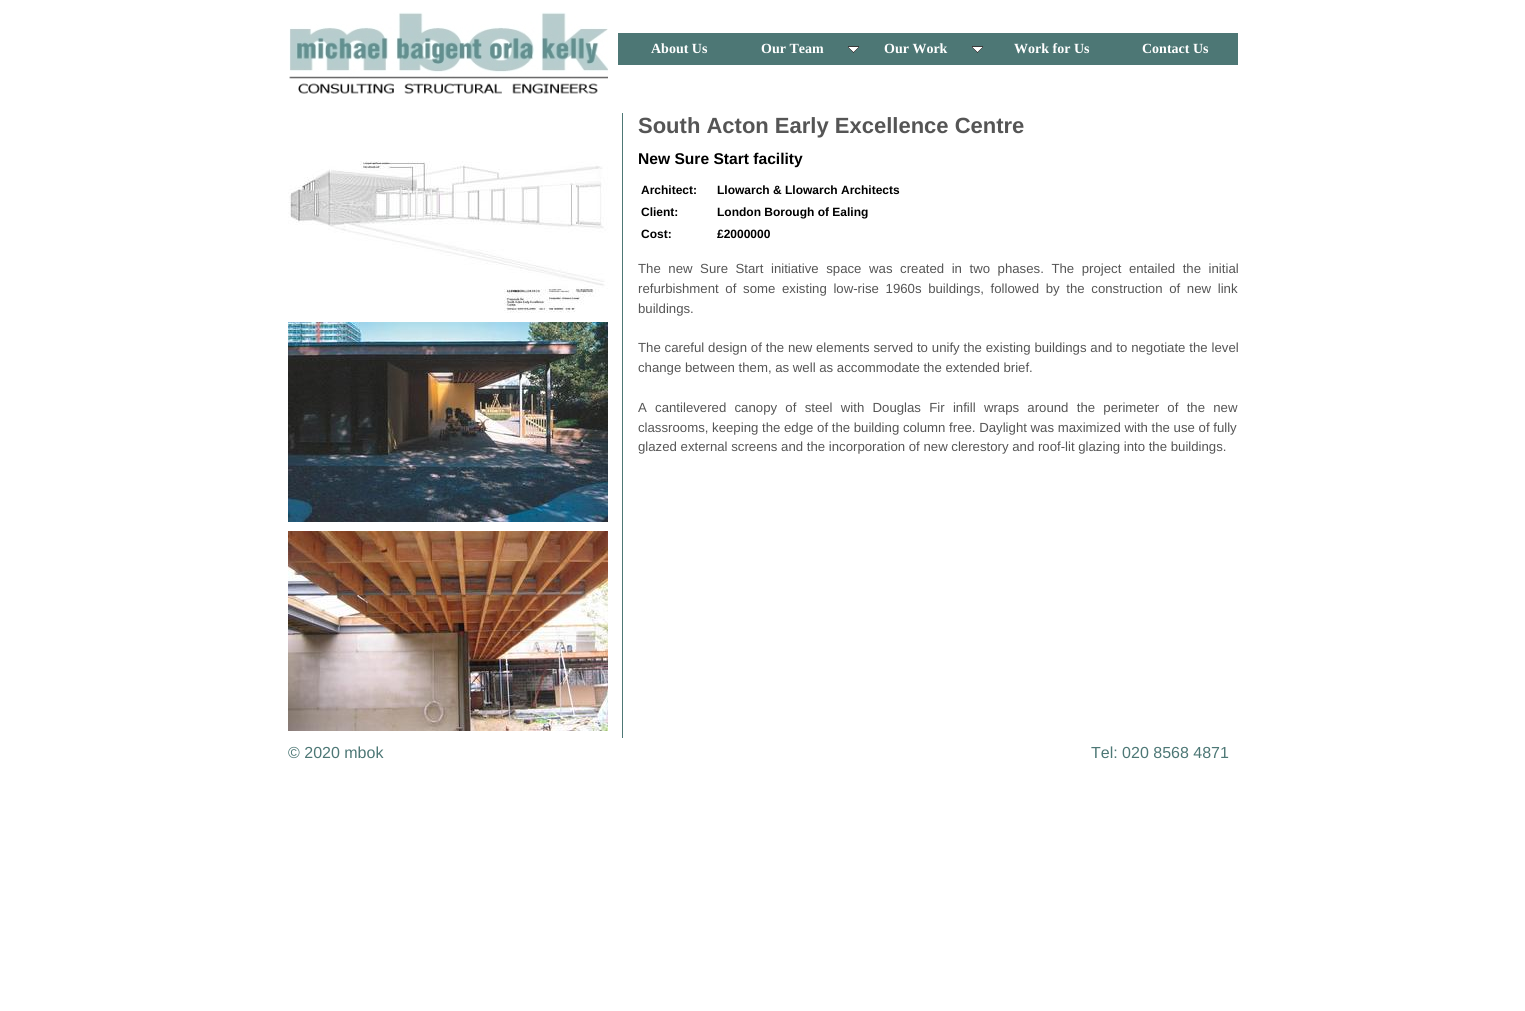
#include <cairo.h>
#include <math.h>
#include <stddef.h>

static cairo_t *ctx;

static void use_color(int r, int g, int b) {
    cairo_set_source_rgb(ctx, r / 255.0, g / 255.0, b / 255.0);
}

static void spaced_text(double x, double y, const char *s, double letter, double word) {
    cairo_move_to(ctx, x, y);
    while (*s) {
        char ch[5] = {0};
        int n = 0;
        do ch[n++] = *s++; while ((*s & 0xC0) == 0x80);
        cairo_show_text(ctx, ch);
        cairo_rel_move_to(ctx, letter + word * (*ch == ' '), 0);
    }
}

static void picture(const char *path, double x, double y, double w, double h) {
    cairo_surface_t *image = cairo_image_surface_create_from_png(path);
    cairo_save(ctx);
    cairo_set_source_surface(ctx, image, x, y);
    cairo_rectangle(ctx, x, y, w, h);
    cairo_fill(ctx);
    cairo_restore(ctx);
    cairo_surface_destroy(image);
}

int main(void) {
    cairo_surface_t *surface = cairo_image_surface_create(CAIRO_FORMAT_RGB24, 1525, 1011);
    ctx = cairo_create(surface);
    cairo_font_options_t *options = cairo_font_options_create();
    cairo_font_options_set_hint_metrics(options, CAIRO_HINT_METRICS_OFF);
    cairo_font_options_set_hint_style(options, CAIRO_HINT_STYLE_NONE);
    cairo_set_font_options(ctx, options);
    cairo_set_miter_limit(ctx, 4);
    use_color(255, 255, 255);
    cairo_paint(ctx);
    picture("img1.png", 289, 12, 319, 82);
    use_color(77, 119, 117);
    cairo_rectangle(ctx, 618, 33, 620, 32);
    cairo_fill(ctx);
    cairo_select_font_face(ctx, "Liberation Serif", CAIRO_FONT_SLANT_NORMAL, CAIRO_FONT_WEIGHT_BOLD);
    cairo_set_font_size(ctx, 14);
    use_color(255, 255, 255);
    cairo_move_to(ctx, 651, 53);
    cairo_show_text(ctx, "About Us");
    cairo_move_to(ctx, 761, 53);
    cairo_show_text(ctx, "Our Team");
    picture("img2.png", 848, 46, 11, 7);
    cairo_move_to(ctx, 884, 53);
    cairo_show_text(ctx, "Our Work");
    picture("img2.png", 972, 46, 11, 7);
    cairo_move_to(ctx, 1014, 53);
    cairo_show_text(ctx, "Work for Us");
    cairo_move_to(ctx, 1142, 53);
    cairo_show_text(ctx, "Contact Us");
    picture("img3.png", 288, 161, 320, 152);
    picture("img4.png", 288, 322, 320, 200);
    picture("img5.png", 288, 531, 320, 200);
    use_color(77, 119, 117);
    cairo_rectangle(ctx, 622, 113, 1, 625);
    cairo_fill(ctx);
    cairo_select_font_face(ctx, "Liberation Sans", CAIRO_FONT_SLANT_NORMAL, CAIRO_FONT_WEIGHT_BOLD);
    cairo_set_font_size(ctx, 22);
    use_color(85, 85, 85);
    cairo_move_to(ctx, 638, 133);
    cairo_show_text(ctx, "South Acton Early Excellence Centre");
    cairo_set_font_size(ctx, 15.6);
    use_color(0, 0, 0);
    cairo_move_to(ctx, 638, 164);
    cairo_show_text(ctx, "New Sure Start facility");
    cairo_set_font_size(ctx, 12);
    cairo_move_to(ctx, 641, 194);
    cairo_show_text(ctx, "Architect:");
    cairo_move_to(ctx, 717, 194);
    cairo_show_text(ctx, "Llowarch & Llowarch Architects");
    cairo_move_to(ctx, 641, 216);
    cairo_show_text(ctx, "Client:");
    cairo_move_to(ctx, 717, 216);
    cairo_show_text(ctx, "London Borough of Ealing");
    cairo_move_to(ctx, 641, 238);
    cairo_show_text(ctx, "Cost:");
    cairo_move_to(ctx, 717, 238);
    cairo_show_text(ctx, "£2000000");
    cairo_select_font_face(ctx, "Liberation Sans", CAIRO_FONT_SLANT_NORMAL, CAIRO_FONT_WEIGHT_NORMAL);
    cairo_set_font_size(ctx, 13.2);
    use_color(85, 85, 85);
    spaced_text(638, 273, "The new Sure Start initiative space was created in two phases. The project entailed the initial", 0, 3.9);
    spaced_text(638, 293, "refurbishment of some existing low-rise 1960s buildings, followed by the construction of new link", 0, 3);
    cairo_move_to(ctx, 638, 313);
    cairo_show_text(ctx, "buildings.");
    spaced_text(638, 352, "The careful design of the new elements served to unify the existing buildings and to negotiate the level", 0, 0.2);
    cairo_move_to(ctx, 638, 372);
    cairo_show_text(ctx, "change between them, as well as accommodate the extended brief.");
    spaced_text(638, 412, "A cantilevered canopy of steel with Douglas Fir infill wraps around the perimeter of the new", 0, 4.6);
    cairo_move_to(ctx, 638, 432);
    cairo_show_text(ctx, "classrooms, keeping the edge of the building column free. Daylight was maximized with the use of fully");
    cairo_move_to(ctx, 638, 451);
    cairo_show_text(ctx, "glazed external screens and the incorporation of new clerestory and roof-lit glazing into the buildings.");
    cairo_set_font_size(ctx, 16);
    use_color(77, 119, 117);
    cairo_move_to(ctx, 288, 758);
    cairo_show_text(ctx, "© 2020 mbok");
    cairo_move_to(ctx, 1091, 758);
    cairo_show_text(ctx, "Tel: 020 8568 4871");
    cairo_surface_write_to_png(surface, "result.png");
    cairo_font_options_destroy(options);
    cairo_destroy(ctx);
    cairo_surface_destroy(surface);
    return 0;
}
